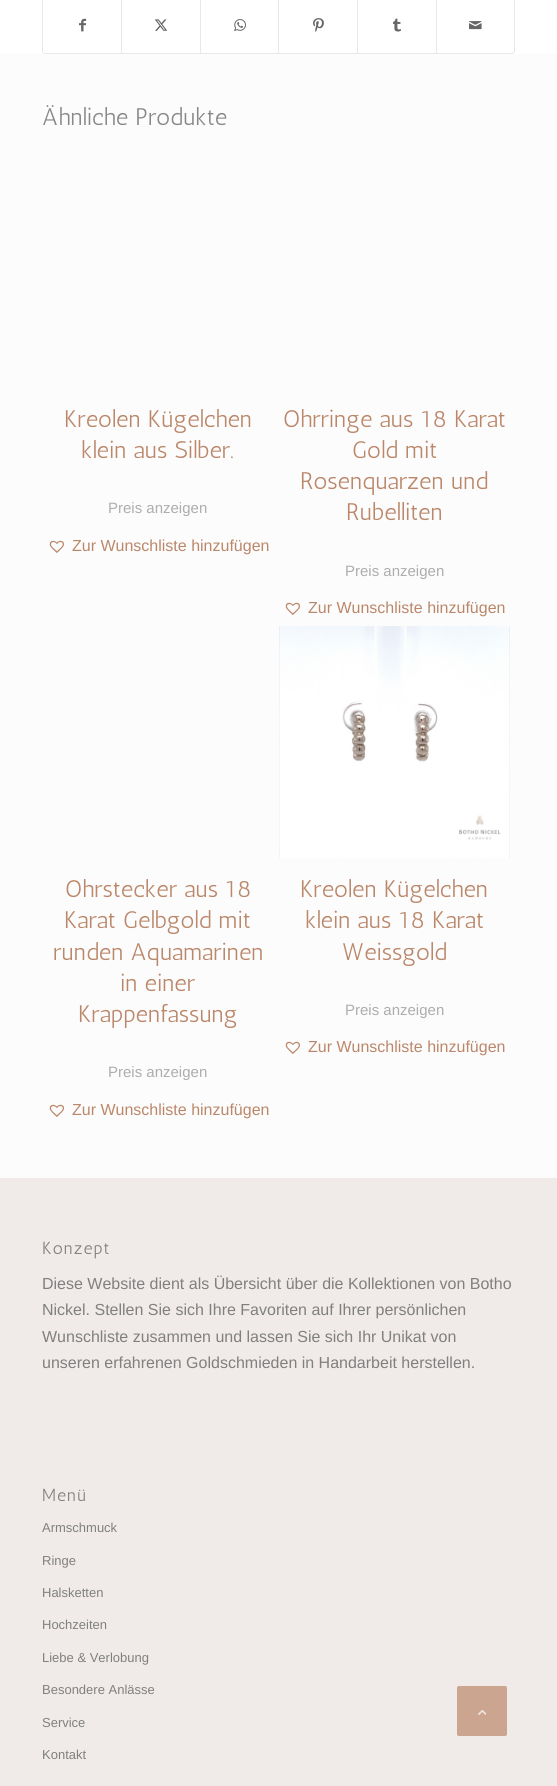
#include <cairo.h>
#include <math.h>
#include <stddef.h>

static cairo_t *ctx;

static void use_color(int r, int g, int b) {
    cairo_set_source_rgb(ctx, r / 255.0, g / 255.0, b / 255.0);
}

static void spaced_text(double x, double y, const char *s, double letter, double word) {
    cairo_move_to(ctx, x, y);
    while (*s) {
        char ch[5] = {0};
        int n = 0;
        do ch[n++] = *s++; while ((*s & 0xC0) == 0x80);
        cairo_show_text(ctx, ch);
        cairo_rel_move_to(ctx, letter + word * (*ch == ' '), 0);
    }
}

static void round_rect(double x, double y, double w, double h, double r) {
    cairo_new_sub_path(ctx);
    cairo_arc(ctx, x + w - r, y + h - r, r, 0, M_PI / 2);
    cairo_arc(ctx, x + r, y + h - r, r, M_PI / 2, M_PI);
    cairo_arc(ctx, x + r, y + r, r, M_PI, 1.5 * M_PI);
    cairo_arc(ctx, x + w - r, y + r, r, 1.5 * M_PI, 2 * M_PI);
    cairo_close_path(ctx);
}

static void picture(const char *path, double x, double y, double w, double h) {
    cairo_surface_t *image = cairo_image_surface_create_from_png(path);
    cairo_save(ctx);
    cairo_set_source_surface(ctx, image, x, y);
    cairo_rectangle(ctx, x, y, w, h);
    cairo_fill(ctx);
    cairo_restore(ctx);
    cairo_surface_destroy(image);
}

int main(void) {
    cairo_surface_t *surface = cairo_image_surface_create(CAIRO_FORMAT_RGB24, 557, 1786);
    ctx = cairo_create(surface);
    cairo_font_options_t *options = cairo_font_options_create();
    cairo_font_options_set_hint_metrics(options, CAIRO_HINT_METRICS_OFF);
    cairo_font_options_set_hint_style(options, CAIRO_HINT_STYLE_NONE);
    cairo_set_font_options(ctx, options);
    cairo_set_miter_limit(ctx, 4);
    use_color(255, 255, 255);
    cairo_paint(ctx);
    round_rect(42.5, -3.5, 472, 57, 2.5);
    use_color(232, 232, 232);
    cairo_set_line_width(ctx, 1);
    cairo_stroke(ctx);
    picture("img1.png", 79, 18, 7, 14);
    cairo_rectangle(ctx, 121, 0, 1, 53);
    cairo_fill(ctx);
    picture("img2.png", 154, 19, 14, 12);
    cairo_rectangle(ctx, 200, 0, 1, 53);
    cairo_fill(ctx);
    picture("img3.png", 234, 19, 12, 13);
    cairo_rectangle(ctx, 278, 0, 1, 53);
    cairo_fill(ctx);
    picture("img4.png", 313, 18, 11, 14);
    cairo_rectangle(ctx, 357, 0, 1, 53);
    cairo_fill(ctx);
    picture("img5.png", 393, 18, 8, 14);
    cairo_rectangle(ctx, 436, 0, 1, 53);
    cairo_fill(ctx);
    picture("img6.png", 469, 21, 13, 9);
    use_color(252, 252, 252);
    cairo_rectangle(ctx, 0, 54, 557, 1124);
    cairo_fill(ctx);
    cairo_select_font_face(ctx, "Antic", CAIRO_FONT_SLANT_NORMAL, CAIRO_FONT_WEIGHT_NORMAL);
    cairo_set_font_size(ctx, 24);
    use_color(136, 136, 136);
    cairo_move_to(ctx, 42, 125);
    cairo_show_text(ctx, "Ähnliche Produkte");
    use_color(187, 135, 106);
    cairo_move_to(ctx, 64, 427);
    cairo_show_text(ctx, "Kreolen Kügelchen");
    cairo_move_to(ctx, 81, 458);
    cairo_show_text(ctx, "klein aus Silber.");
    cairo_select_font_face(ctx, "Liberation Sans", CAIRO_FONT_SLANT_NORMAL, CAIRO_FONT_WEIGHT_NORMAL);
    cairo_set_font_size(ctx, 15);
    use_color(173, 173, 173);
    cairo_move_to(ctx, 108, 513);
    cairo_show_text(ctx, "Preis anzeigen");
    picture("img7.png", 49, 540, 15, 13);
    cairo_set_font_size(ctx, 16);
    use_color(187, 135, 106);
    cairo_move_to(ctx, 72, 551);
    cairo_show_text(ctx, "Zur Wunschliste hinzufügen");
    cairo_select_font_face(ctx, "Antic", CAIRO_FONT_SLANT_NORMAL, CAIRO_FONT_WEIGHT_NORMAL);
    cairo_set_font_size(ctx, 24);
    cairo_move_to(ctx, 283, 427);
    cairo_show_text(ctx, "Ohrringe aus 18 Karat");
    cairo_move_to(ctx, 352, 458);
    cairo_show_text(ctx, "Gold mit");
    cairo_move_to(ctx, 300, 489);
    cairo_show_text(ctx, "Rosenquarzen und");
    cairo_move_to(ctx, 346, 520);
    cairo_show_text(ctx, "Rubelliten");
    cairo_select_font_face(ctx, "Liberation Sans", CAIRO_FONT_SLANT_NORMAL, CAIRO_FONT_WEIGHT_NORMAL);
    cairo_set_font_size(ctx, 15);
    use_color(173, 173, 173);
    cairo_move_to(ctx, 345, 576);
    cairo_show_text(ctx, "Preis anzeigen");
    picture("img7.png", 285, 602, 15, 13);
    cairo_set_font_size(ctx, 16);
    use_color(187, 135, 106);
    cairo_move_to(ctx, 308, 613);
    cairo_show_text(ctx, "Zur Wunschliste hinzufügen");
    cairo_select_font_face(ctx, "Antic", CAIRO_FONT_SLANT_NORMAL, CAIRO_FONT_WEIGHT_NORMAL);
    cairo_set_font_size(ctx, 24);
    cairo_move_to(ctx, 65, 897);
    cairo_show_text(ctx, "Ohrstecker aus 18");
    cairo_move_to(ctx, 64, 928);
    cairo_show_text(ctx, "Karat Gelbgold mit");
    cairo_move_to(ctx, 53, 960);
    cairo_show_text(ctx, "runden Aquamarinen");
    cairo_move_to(ctx, 120, 991);
    cairo_show_text(ctx, "in einer");
    cairo_move_to(ctx, 78, 1022);
    cairo_show_text(ctx, "Krappenfassung");
    cairo_select_font_face(ctx, "Liberation Sans", CAIRO_FONT_SLANT_NORMAL, CAIRO_FONT_WEIGHT_NORMAL);
    cairo_set_font_size(ctx, 15);
    use_color(173, 173, 173);
    cairo_move_to(ctx, 108, 1077);
    cairo_show_text(ctx, "Preis anzeigen");
    picture("img7.png", 49, 1104, 15, 13);
    cairo_set_font_size(ctx, 16);
    use_color(187, 135, 106);
    cairo_move_to(ctx, 72, 1115);
    cairo_show_text(ctx, "Zur Wunschliste hinzufügen");
    picture("img8.png", 279, 626, 231, 232);
    cairo_select_font_face(ctx, "Antic", CAIRO_FONT_SLANT_NORMAL, CAIRO_FONT_WEIGHT_NORMAL);
    cairo_set_font_size(ctx, 24);
    cairo_move_to(ctx, 300, 897);
    cairo_show_text(ctx, "Kreolen Kügelchen");
    cairo_move_to(ctx, 305, 928);
    cairo_show_text(ctx, "klein aus 18 Karat");
    cairo_move_to(ctx, 342, 960);
    cairo_show_text(ctx, "Weissgold");
    cairo_select_font_face(ctx, "Liberation Sans", CAIRO_FONT_SLANT_NORMAL, CAIRO_FONT_WEIGHT_NORMAL);
    cairo_set_font_size(ctx, 15);
    use_color(173, 173, 173);
    cairo_move_to(ctx, 345, 1015);
    cairo_show_text(ctx, "Preis anzeigen");
    picture("img7.png", 285, 1041, 15, 13);
    cairo_set_font_size(ctx, 16);
    use_color(187, 135, 106);
    cairo_move_to(ctx, 308, 1052);
    cairo_show_text(ctx, "Zur Wunschliste hinzufügen");
    use_color(240, 235, 232);
    cairo_rectangle(ctx, 0, 1178, 557, 608);
    cairo_fill(ctx);
    cairo_select_font_face(ctx, "Antic", CAIRO_FONT_SLANT_NORMAL, CAIRO_FONT_WEIGHT_NORMAL);
    cairo_set_font_size(ctx, 17.5);
    use_color(128, 128, 128);
    spaced_text(42, 1254, "Konzept", 1, 0);
    cairo_select_font_face(ctx, "Liberation Sans", CAIRO_FONT_SLANT_NORMAL, CAIRO_FONT_WEIGHT_NORMAL);
    cairo_set_font_size(ctx, 16);
    cairo_move_to(ctx, 42, 1289);
    cairo_show_text(ctx, "Diese Website dient als Übersicht über die Kollektionen von Botho");
    cairo_move_to(ctx, 42, 1315);
    cairo_show_text(ctx, "Nickel. Stellen Sie sich Ihre Favoriten auf Ihrer persönlichen");
    cairo_move_to(ctx, 42, 1342);
    cairo_show_text(ctx, "Wunschliste zusammen und lassen Sie sich Ihr Unikat von");
    cairo_move_to(ctx, 42, 1368);
    cairo_show_text(ctx, "unseren erfahrenen Goldschmieden in Handarbeit herstellen.");
    cairo_select_font_face(ctx, "Antic", CAIRO_FONT_SLANT_NORMAL, CAIRO_FONT_WEIGHT_NORMAL);
    cairo_set_font_size(ctx, 17.5);
    spaced_text(42, 1501, "Menü", 1, 0);
    cairo_select_font_face(ctx, "Liberation Sans", CAIRO_FONT_SLANT_NORMAL, CAIRO_FONT_WEIGHT_NORMAL);
    cairo_set_font_size(ctx, 13);
    cairo_move_to(ctx, 42, 1532);
    cairo_show_text(ctx, "Armschmuck");
    cairo_move_to(ctx, 42, 1565);
    cairo_show_text(ctx, "Ringe");
    cairo_move_to(ctx, 42, 1597);
    cairo_show_text(ctx, "Halsketten");
    cairo_move_to(ctx, 42, 1629);
    cairo_show_text(ctx, "Hochzeiten");
    cairo_move_to(ctx, 42, 1662);
    cairo_show_text(ctx, "Liebe & Verlobung");
    cairo_move_to(ctx, 42, 1694);
    cairo_show_text(ctx, "Besondere Anlässe");
    cairo_move_to(ctx, 42, 1727);
    cairo_show_text(ctx, "Service");
    cairo_move_to(ctx, 42, 1759);
    cairo_show_text(ctx, "Kontakt");
    use_color(203, 165, 144);
    round_rect(457.5, 1686.5, 49, 49, 1.5);
    cairo_fill_preserve(ctx);
    cairo_stroke(ctx);
    picture("img9.png", 478, 1710, 8, 5);
    cairo_surface_write_to_png(surface, "result.png");
    cairo_font_options_destroy(options);
    cairo_destroy(ctx);
    cairo_surface_destroy(surface);
    return 0;
}
